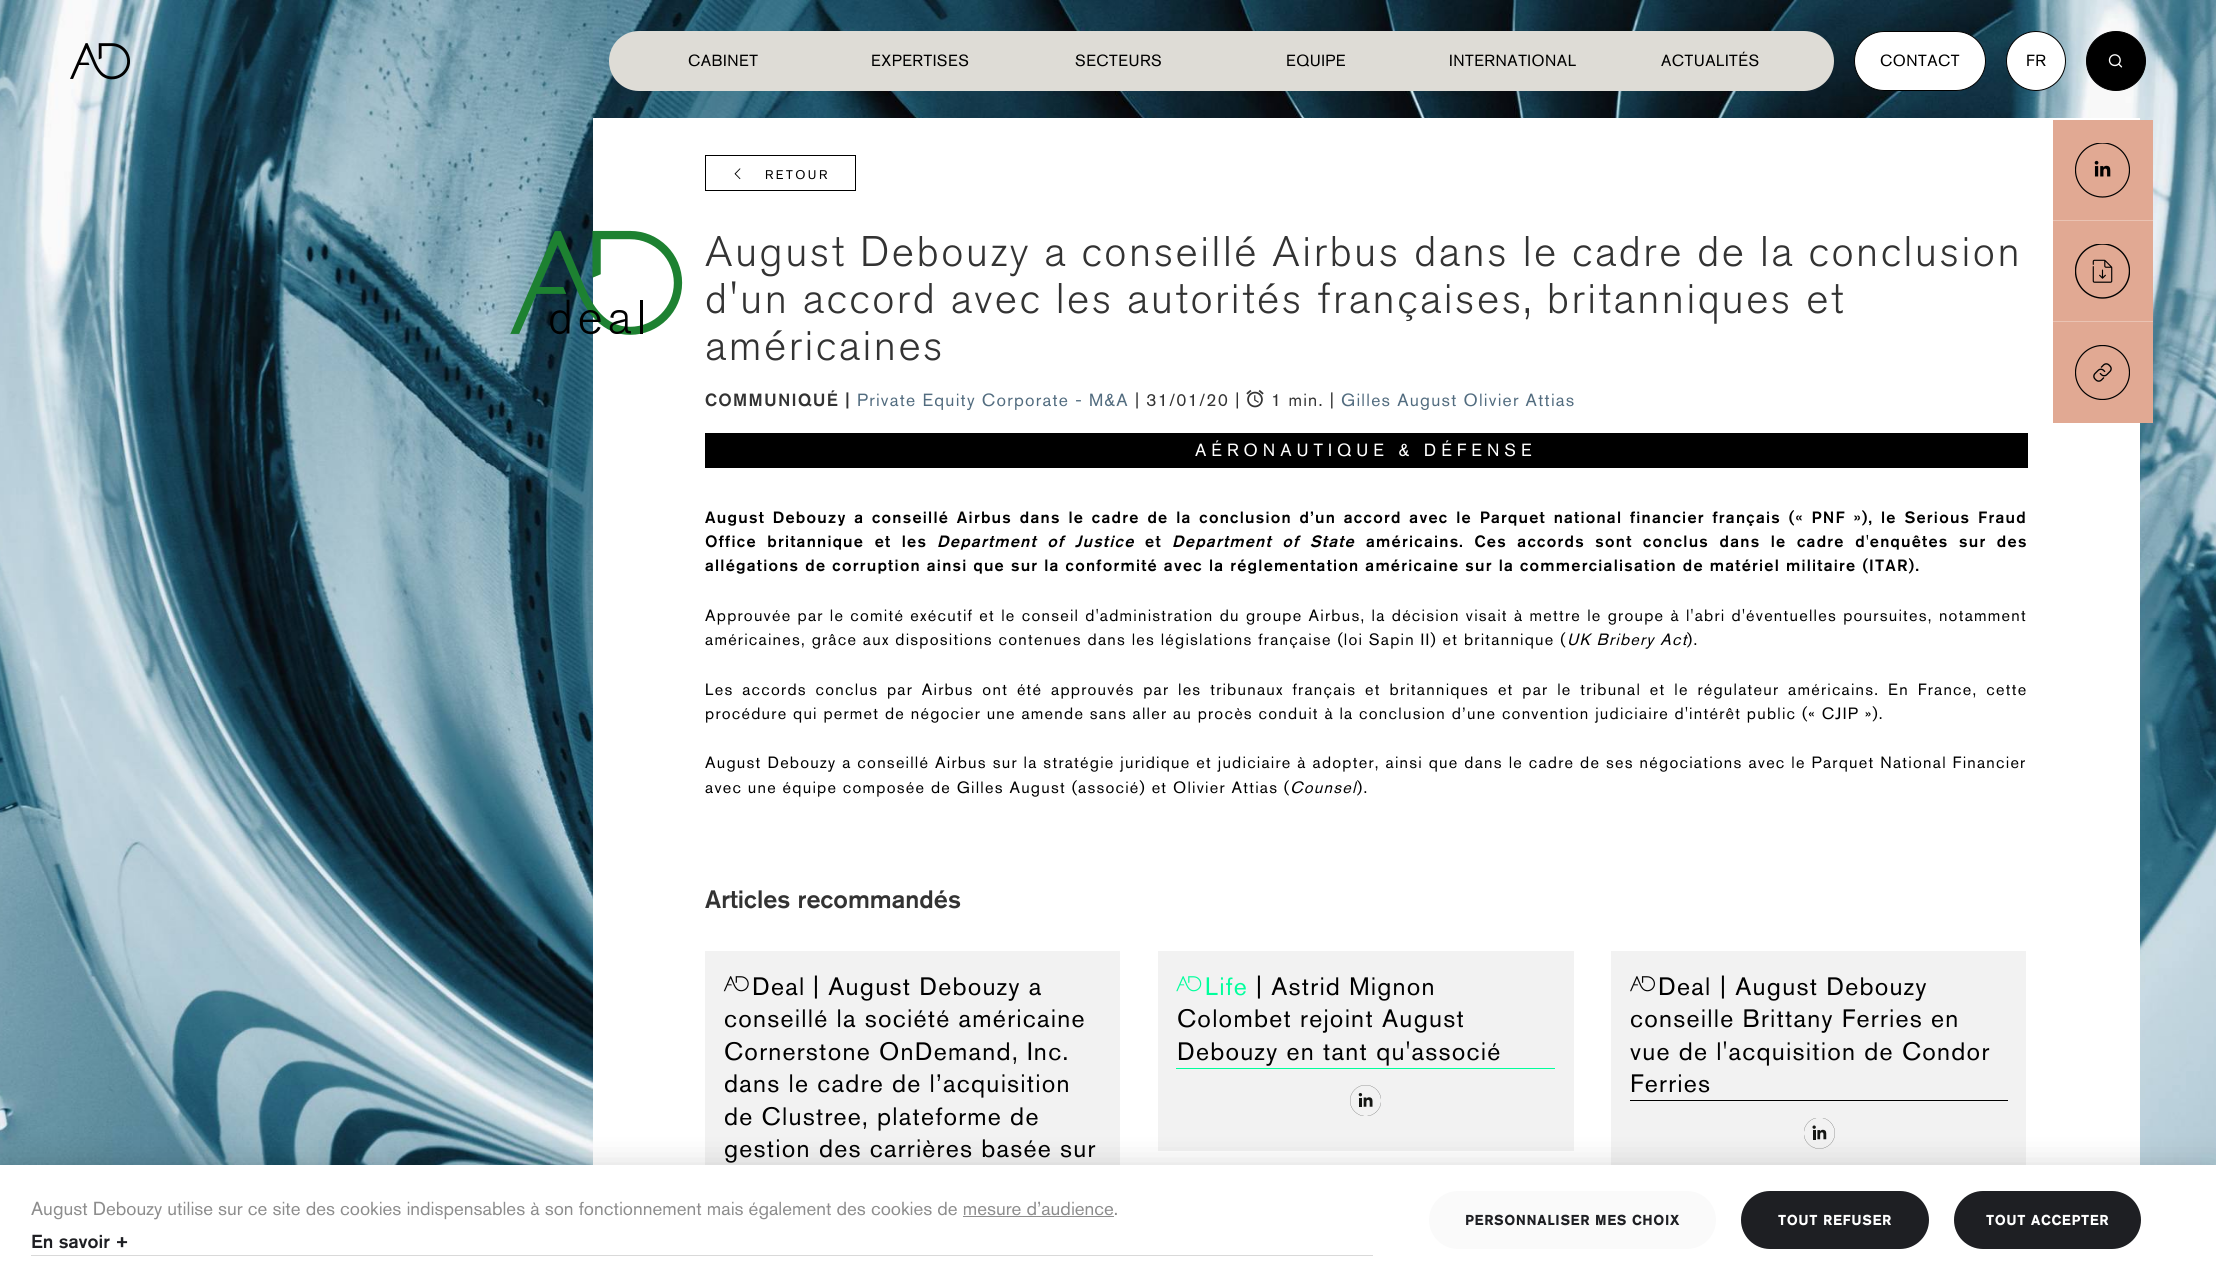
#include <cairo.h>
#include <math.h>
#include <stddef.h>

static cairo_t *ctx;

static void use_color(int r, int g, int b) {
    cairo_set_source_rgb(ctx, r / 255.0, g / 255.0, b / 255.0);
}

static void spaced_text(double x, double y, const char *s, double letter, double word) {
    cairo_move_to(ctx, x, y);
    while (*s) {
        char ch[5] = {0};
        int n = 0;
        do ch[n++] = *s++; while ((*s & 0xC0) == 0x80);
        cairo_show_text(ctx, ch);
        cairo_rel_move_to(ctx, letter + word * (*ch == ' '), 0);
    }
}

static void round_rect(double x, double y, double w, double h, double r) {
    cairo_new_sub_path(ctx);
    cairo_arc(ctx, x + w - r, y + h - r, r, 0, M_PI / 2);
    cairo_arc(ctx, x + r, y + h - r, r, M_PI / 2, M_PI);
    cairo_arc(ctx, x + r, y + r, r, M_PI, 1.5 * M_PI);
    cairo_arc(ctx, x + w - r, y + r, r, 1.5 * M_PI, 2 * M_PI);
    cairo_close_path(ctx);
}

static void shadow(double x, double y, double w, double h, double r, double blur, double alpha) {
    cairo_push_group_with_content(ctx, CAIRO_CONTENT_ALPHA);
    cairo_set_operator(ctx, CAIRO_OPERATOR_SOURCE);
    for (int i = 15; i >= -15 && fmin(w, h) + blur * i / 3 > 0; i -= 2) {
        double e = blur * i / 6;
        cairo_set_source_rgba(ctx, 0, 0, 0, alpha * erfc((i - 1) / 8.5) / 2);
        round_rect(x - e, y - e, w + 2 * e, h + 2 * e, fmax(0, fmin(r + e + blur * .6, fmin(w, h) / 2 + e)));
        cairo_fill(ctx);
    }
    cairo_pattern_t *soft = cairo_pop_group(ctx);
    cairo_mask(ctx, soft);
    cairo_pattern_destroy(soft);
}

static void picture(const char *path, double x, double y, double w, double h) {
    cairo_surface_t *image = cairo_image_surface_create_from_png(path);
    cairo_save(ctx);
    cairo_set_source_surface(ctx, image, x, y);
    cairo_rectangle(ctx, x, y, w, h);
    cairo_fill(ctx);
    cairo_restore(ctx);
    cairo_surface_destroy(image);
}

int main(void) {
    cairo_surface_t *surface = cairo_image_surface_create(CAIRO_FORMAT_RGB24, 2216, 1287);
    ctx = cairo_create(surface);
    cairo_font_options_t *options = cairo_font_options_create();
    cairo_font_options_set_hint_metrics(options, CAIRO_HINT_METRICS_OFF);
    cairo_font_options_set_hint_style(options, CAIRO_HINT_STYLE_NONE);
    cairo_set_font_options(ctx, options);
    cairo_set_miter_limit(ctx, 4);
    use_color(255, 255, 255);
    cairo_paint(ctx);
    picture("img3.png", 0, 0, 2216, 1165);
    picture("img1.png", 70, 43, 60, 37);
    use_color(222, 220, 214);
    round_rect(609, 31, 1225, 60, 30);
    cairo_fill(ctx);
    cairo_select_font_face(ctx, "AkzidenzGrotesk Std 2", CAIRO_FONT_SLANT_NORMAL, CAIRO_FONT_WEIGHT_NORMAL);
    cairo_set_font_size(ctx, 16);
    use_color(0, 0, 0);
    spaced_text(688, 66, "CABINET", 0.5, 0);
    spaced_text(871, 66, "EXPERTISES", 0.5, 0);
    spaced_text(1075, 66, "SECTEURS", 0.5, 0);
    spaced_text(1286, 66, "EQUIPE", 0.5, 0);
    spaced_text(1449, 66, "INTERNATIONAL", 0.5, 0);
    spaced_text(1661, 66, "ACTUALITÉS", 0.5, 0);
    use_color(255, 255, 255);
    round_rect(1854.5, 31.5, 131, 59, 29.5);
    cairo_fill_preserve(ctx);
    use_color(0, 0, 0);
    cairo_set_line_width(ctx, 1);
    cairo_stroke(ctx);
    spaced_text(1880, 66, "CONTACT", 0.5, 0);
    use_color(255, 255, 255);
    cairo_new_path(ctx);
    cairo_arc(ctx, 2036, 61, 29.5, 0, 2 * M_PI);
    cairo_fill_preserve(ctx);
    use_color(0, 0, 0);
    cairo_stroke(ctx);
    spaced_text(2026, 66, "FR", 0.5, 0);
    cairo_new_path(ctx);
    cairo_arc(ctx, 2116, 61, 29.5, 0, 2 * M_PI);
    cairo_fill_preserve(ctx);
    cairo_stroke(ctx);
    picture("img2.png", 2108, 54, 15, 14);
    use_color(255, 255, 255);
    cairo_rectangle(ctx, 593, 118, 1547, 1047);
    cairo_fill(ctx);
    cairo_rectangle(ctx, 705.5, 155.5, 150, 35);
    use_color(0, 0, 0);
    cairo_stroke(ctx);
    picture("img4.png", 734, 168, 7, 12);
    cairo_select_font_face(ctx, "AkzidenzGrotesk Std", CAIRO_FONT_SLANT_NORMAL, CAIRO_FONT_WEIGHT_NORMAL);
    cairo_set_font_size(ctx, 12.5);
    spaced_text(765, 179, "RETOUR", 2.5, 0);
    use_color(225, 169, 147);
    cairo_rectangle(ctx, 2053, 120, 100, 303);
    cairo_fill(ctx);
    picture("img5.png", 2075, 143, 55, 55);
    use_color(234, 195, 179);
    cairo_rectangle(ctx, 2053, 220, 100, 1);
    cairo_fill(ctx);
    picture("img6.png", 2075, 244, 55, 55);
    cairo_rectangle(ctx, 2053, 321, 100, 1);
    cairo_fill(ctx);
    picture("img7.png", 2075, 345, 55, 55);
    picture("img8.png", 510, 230, 173, 105);
    cairo_select_font_face(ctx, "AkzidenzGrotesk Std Light", CAIRO_FONT_SLANT_NORMAL, CAIRO_FONT_WEIGHT_NORMAL);
    cairo_set_font_size(ctx, 42.5);
    use_color(51, 51, 51);
    spaced_text(705, 266, "August Debouzy a conseillé Airbus dans le cadre de la conclusion", 2.5, 0);
    spaced_text(705, 313, "d'un accord avec les autorités françaises, britanniques et", 2.5, 0);
    spaced_text(705, 360, "américaines", 2.5, 0);
    cairo_select_font_face(ctx, "AkzidenzGrotesk Std Medium", CAIRO_FONT_SLANT_NORMAL, CAIRO_FONT_WEIGHT_NORMAL);
    cairo_set_font_size(ctx, 17.5);
    spaced_text(705, 406, "COMMUNIQUÉ |", 1.25, 0);
    cairo_select_font_face(ctx, "AkzidenzGrotesk Std", CAIRO_FONT_SLANT_NORMAL, CAIRO_FONT_WEIGHT_NORMAL);
    use_color(82, 108, 127);
    spaced_text(857, 406, "Private Equity Corporate - M&A", 1.25, 0);
    use_color(51, 51, 51);
    spaced_text(1135, 406, "| 31/01/20 |", 1.25, 0);
    picture("img9.png", 1246, 389, 18, 19);
    spaced_text(1271, 406, "1 min. |", 1.25, 0);
    use_color(82, 108, 127);
    spaced_text(1341, 406, "Gilles August Olivier Attias", 1.25, 0);
    use_color(0, 0, 0);
    cairo_rectangle(ctx, 705, 433, 1323, 35);
    cairo_fill(ctx);
    use_color(255, 255, 255);
    spaced_text(1195, 456, "AÉRONAUTIQUE & DÉFENSE", 5, 0);
    cairo_select_font_face(ctx, "AkzidenzGrotesk Std Medium", CAIRO_FONT_SLANT_NORMAL, CAIRO_FONT_WEIGHT_NORMAL);
    cairo_set_font_size(ctx, 16.25);
    use_color(0, 0, 0);
    spaced_text(705, 523, "August Debouzy a conseillé Airbus dans le cadre de la conclusion d’un accord avec le Parquet national financier français (« PNF »), le Serious Fraud", 1.25, 1.8);
    spaced_text(705, 547, "Office britannique et les", 1.25, 4.5);
    cairo_select_font_face(ctx, "AkzidenzGrotesk Std Medium", CAIRO_FONT_SLANT_ITALIC, CAIRO_FONT_WEIGHT_NORMAL);
    spaced_text(937, 547, "Department of Justice", 1.25, 4.5);
    cairo_select_font_face(ctx, "AkzidenzGrotesk Std Medium", CAIRO_FONT_SLANT_NORMAL, CAIRO_FONT_WEIGHT_NORMAL);
    spaced_text(1145, 547, "et", 1.25, 0);
    cairo_select_font_face(ctx, "AkzidenzGrotesk Std Medium", CAIRO_FONT_SLANT_ITALIC, CAIRO_FONT_WEIGHT_NORMAL);
    spaced_text(1172, 547, "Department of State", 1.25, 4.5);
    cairo_select_font_face(ctx, "AkzidenzGrotesk Std Medium", CAIRO_FONT_SLANT_NORMAL, CAIRO_FONT_WEIGHT_NORMAL);
    spaced_text(1366, 547, "américains. Ces accords sont conclus dans le cadre d'enquêtes sur des", 1.25, 4.5);
    spaced_text(705, 571, "allégations de corruption ainsi que sur la conformité avec la réglementation américaine sur la commercialisation de matériel militaire (ITAR).", 1.25, 0);
    cairo_select_font_face(ctx, "AkzidenzGrotesk Std", CAIRO_FONT_SLANT_NORMAL, CAIRO_FONT_WEIGHT_NORMAL);
    spaced_text(705, 621, "Approuvée par le comité exécutif et le conseil d'administration du groupe Airbus, la décision visait à mettre le groupe à l'abri d'éventuelles poursuites, notamment", 1.25, 0.5);
    spaced_text(705, 645, "américaines, grâce aux dispositions contenues dans les législations française (loi Sapin II) et britannique (", 1.25, 0);
    cairo_select_font_face(ctx, "AkzidenzGrotesk Std", CAIRO_FONT_SLANT_ITALIC, CAIRO_FONT_WEIGHT_NORMAL);
    spaced_text(1567, 645, "UK Bribery Act", 1.25, 0);
    cairo_select_font_face(ctx, "AkzidenzGrotesk Std", CAIRO_FONT_SLANT_NORMAL, CAIRO_FONT_WEIGHT_NORMAL);
    spaced_text(1687, 645, ").", 1.25, 0);
    spaced_text(705, 695, "Les accords conclus par Airbus ont été approuvés par les tribunaux français et britanniques et par le tribunal et le régulateur américains. En France, cette", 1.25, 3.1);
    spaced_text(705, 719, "procédure qui permet de négocier une amende sans aller au procès conduit à la conclusion d’une convention judiciaire d'intérêt public (« CJIP »).", 1.25, 0);
    spaced_text(705, 768, "August Debouzy a conseillé Airbus sur la stratégie juridique et judiciaire à adopter, ainsi que dans le cadre de ses négociations avec le Parquet National Financier", 1.25, 0.15);
    spaced_text(705, 793, "avec une équipe composée de Gilles August (associé) et Olivier Attias (", 1.25, 0);
    cairo_select_font_face(ctx, "AkzidenzGrotesk Std", CAIRO_FONT_SLANT_ITALIC, CAIRO_FONT_WEIGHT_NORMAL);
    spaced_text(1290, 793, "Counsel", 1.25, 0);
    cairo_select_font_face(ctx, "AkzidenzGrotesk Std", CAIRO_FONT_SLANT_NORMAL, CAIRO_FONT_WEIGHT_NORMAL);
    spaced_text(1357, 793, ").", 1.25, 0);
    cairo_select_font_face(ctx, "AkzidenzGrotesk Std 2 Medium", CAIRO_FONT_SLANT_NORMAL, CAIRO_FONT_WEIGHT_NORMAL);
    cairo_set_font_size(ctx, 25);
    use_color(51, 51, 51);
    cairo_move_to(ctx, 705, 908);
    cairo_show_text(ctx, "Articles recommandés");
    use_color(242, 242, 242);
    cairo_rectangle(ctx, 705, 951, 415, 214);
    cairo_fill(ctx);
    picture("img10.png", 723, 976, 26, 16);
    cairo_select_font_face(ctx, "AkzidenzGrotesk Std", CAIRO_FONT_SLANT_NORMAL, CAIRO_FONT_WEIGHT_NORMAL);
    use_color(0, 0, 0);
    spaced_text(752, 995, "Deal", 1.25, 0);
    spaced_text(813, 995, "| August Debouzy a", 1.25, 0);
    spaced_text(724, 1027, "conseillé la société américaine", 1.25, 0);
    spaced_text(724, 1060, "Cornerstone OnDemand, Inc.", 1.25, 0);
    spaced_text(724, 1092, "dans le cadre de l’acquisition", 1.25, 0);
    spaced_text(724, 1125, "de Clustree, plateforme de", 1.25, 0);
    spaced_text(724, 1157, "gestion des carrières basée sur", 1.25, 0);
    use_color(242, 242, 242);
    cairo_rectangle(ctx, 1158, 951, 416, 200);
    cairo_fill(ctx);
    picture("img11.png", 1176, 976, 26, 16);
    use_color(0, 255, 156);
    spaced_text(1205, 995, "Life", 1.25, 0);
    use_color(0, 0, 0);
    spaced_text(1256, 995, "| Astrid Mignon", 1.25, 0);
    spaced_text(1177, 1027, "Colombet rejoint August", 1.25, 0);
    spaced_text(1177, 1060, "Debouzy en tant qu'associé", 1.25, 0);
    use_color(0, 255, 156);
    cairo_rectangle(ctx, 1176, 1068, 379, 1);
    cairo_fill(ctx);
    picture("img12.png", 1350, 1085, 31, 31);
    use_color(242, 242, 242);
    cairo_rectangle(ctx, 1611, 951, 415, 214);
    cairo_fill(ctx);
    picture("img13.png", 1630, 976, 25, 16);
    use_color(0, 0, 0);
    spaced_text(1658, 995, "Deal", 1.25, 0);
    spaced_text(1720, 995, "| August Debouzy", 1.25, 0);
    spaced_text(1630, 1027, "conseille Brittany Ferries en", 1.25, 0);
    spaced_text(1630, 1060, "vue de l'acquisition de Condor", 1.25, 0);
    spaced_text(1630, 1092, "Ferries", 1.25, 0);
    cairo_rectangle(ctx, 1630, 1100, 378, 1);
    cairo_fill(ctx);
    picture("img14.png", 1804, 1118, 31, 31);
    use_color(0, 0, 0);
    shadow(0, 1165, 2216, 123, 0, 15.5, 0.15);
    use_color(255, 255, 255);
    cairo_rectangle(ctx, 0, 1165, 2216, 122);
    cairo_fill(ctx);
    cairo_select_font_face(ctx, "AkzidenzGrotesk Std 2", CAIRO_FONT_SLANT_NORMAL, CAIRO_FONT_WEIGHT_NORMAL);
    cairo_set_font_size(ctx, 18.75);
    use_color(141, 141, 141);
    cairo_move_to(ctx, 31, 1215);
    cairo_show_text(ctx, "August Debouzy utilise sur ce site des cookies indispensables à son fonctionnement mais également des cookies de mesure d’audience.");
    cairo_rectangle(ctx, 963, 1216, 151, 1);
    cairo_fill(ctx);
    cairo_select_font_face(ctx, "AkzidenzGrotesk Std 2 Medium", CAIRO_FONT_SLANT_NORMAL, CAIRO_FONT_WEIGHT_NORMAL);
    use_color(30, 31, 35);
    cairo_move_to(ctx, 31, 1248);
    cairo_show_text(ctx, "En savoir +");
    use_color(217, 217, 217);
    cairo_rectangle(ctx, 31, 1255, 1342, 1);
    cairo_fill(ctx);
    use_color(250, 250, 250);
    round_rect(1429, 1191, 287, 58, 29);
    cairo_fill(ctx);
    cairo_select_font_face(ctx, "AkzidenzGrotesk Std", CAIRO_FONT_SLANT_NORMAL, CAIRO_FONT_WEIGHT_BOLD);
    cairo_set_font_size(ctx, 13.75);
    use_color(30, 31, 35);
    spaced_text(1465, 1225, "PERSONNALISER MES CHOIX", 1, 0);
    round_rect(1741, 1191, 188, 58, 29);
    cairo_fill(ctx);
    use_color(255, 255, 255);
    spaced_text(1778, 1225, "TOUT REFUSER", 1, 0);
    use_color(30, 31, 35);
    round_rect(1954, 1191, 187, 58, 29);
    cairo_fill(ctx);
    use_color(255, 255, 255);
    spaced_text(1986, 1225, "TOUT ACCEPTER", 1, 0);
    cairo_surface_write_to_png(surface, "result.png");
    cairo_font_options_destroy(options);
    cairo_destroy(ctx);
    cairo_surface_destroy(surface);
    return 0;
}
